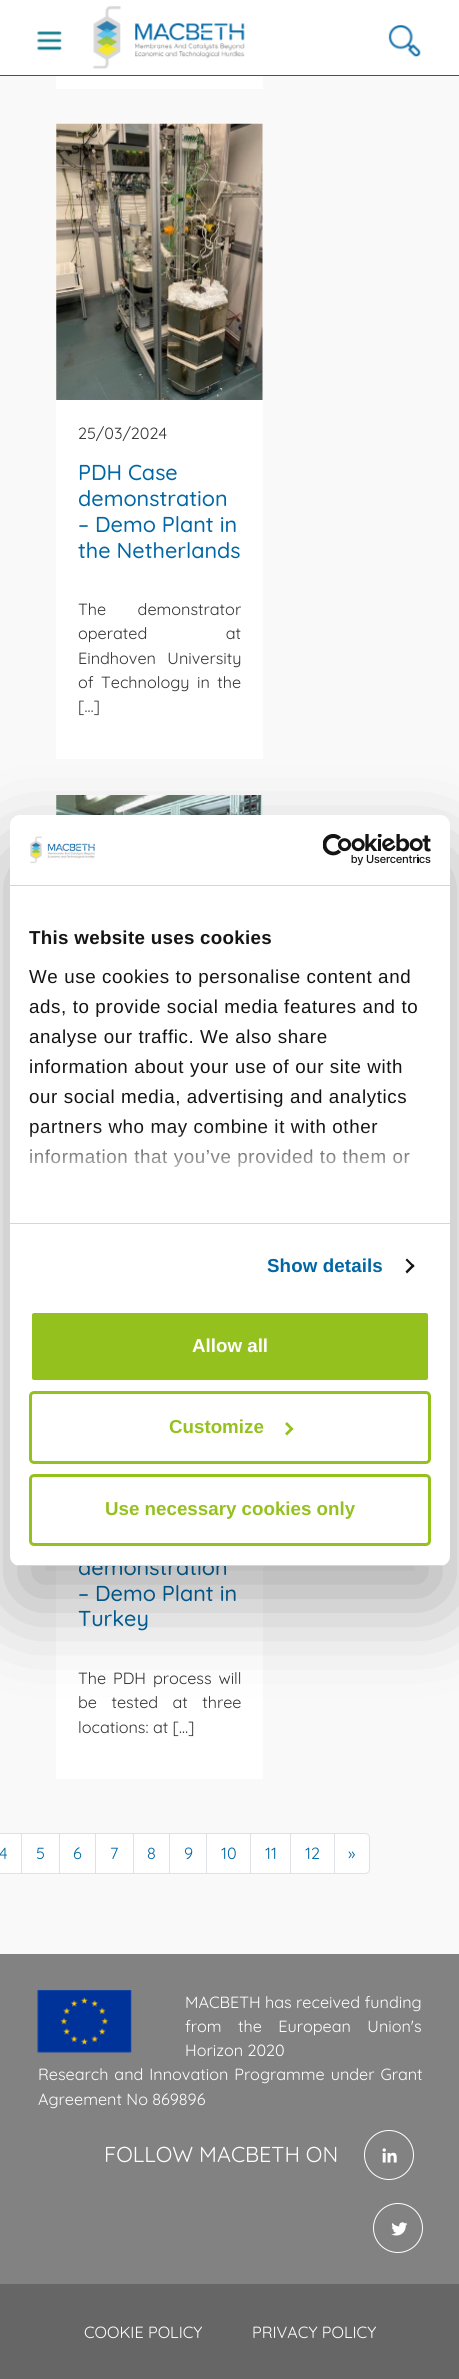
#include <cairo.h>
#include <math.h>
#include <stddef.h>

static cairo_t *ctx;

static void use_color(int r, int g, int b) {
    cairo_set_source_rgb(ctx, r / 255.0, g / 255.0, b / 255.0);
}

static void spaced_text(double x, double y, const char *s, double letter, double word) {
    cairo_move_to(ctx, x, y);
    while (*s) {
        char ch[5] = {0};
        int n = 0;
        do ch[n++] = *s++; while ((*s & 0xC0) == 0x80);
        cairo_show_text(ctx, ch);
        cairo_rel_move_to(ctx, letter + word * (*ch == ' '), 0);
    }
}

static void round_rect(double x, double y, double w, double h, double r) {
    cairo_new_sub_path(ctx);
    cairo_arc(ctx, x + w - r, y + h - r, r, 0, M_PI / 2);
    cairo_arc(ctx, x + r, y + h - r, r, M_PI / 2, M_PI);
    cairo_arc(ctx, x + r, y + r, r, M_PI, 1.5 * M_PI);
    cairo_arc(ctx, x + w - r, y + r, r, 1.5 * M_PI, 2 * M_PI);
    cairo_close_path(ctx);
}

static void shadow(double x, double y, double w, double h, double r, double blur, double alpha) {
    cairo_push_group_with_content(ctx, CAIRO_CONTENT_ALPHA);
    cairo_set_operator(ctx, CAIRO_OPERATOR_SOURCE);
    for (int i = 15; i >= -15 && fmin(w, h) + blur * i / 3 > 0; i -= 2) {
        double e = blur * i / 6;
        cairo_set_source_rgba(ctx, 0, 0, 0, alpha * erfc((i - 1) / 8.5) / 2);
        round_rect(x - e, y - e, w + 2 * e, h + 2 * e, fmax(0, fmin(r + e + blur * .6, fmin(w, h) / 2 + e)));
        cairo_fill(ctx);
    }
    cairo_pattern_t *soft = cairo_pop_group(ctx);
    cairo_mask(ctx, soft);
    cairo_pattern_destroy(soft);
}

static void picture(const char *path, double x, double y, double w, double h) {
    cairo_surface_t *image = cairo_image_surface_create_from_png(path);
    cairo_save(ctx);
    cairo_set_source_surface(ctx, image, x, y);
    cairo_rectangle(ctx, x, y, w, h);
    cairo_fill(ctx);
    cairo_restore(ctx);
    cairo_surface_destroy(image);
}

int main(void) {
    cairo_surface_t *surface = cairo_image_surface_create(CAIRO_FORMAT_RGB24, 459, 2379);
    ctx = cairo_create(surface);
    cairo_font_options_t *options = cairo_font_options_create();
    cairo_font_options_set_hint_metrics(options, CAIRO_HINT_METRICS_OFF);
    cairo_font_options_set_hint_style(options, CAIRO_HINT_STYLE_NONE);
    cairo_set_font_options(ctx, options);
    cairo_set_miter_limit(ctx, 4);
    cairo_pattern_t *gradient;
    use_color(249, 249, 249);
    cairo_paint(ctx);
    use_color(255, 255, 255);
    cairo_rectangle(ctx, 0, 0, 459, 75);
    cairo_fill(ctx);
    picture("img1.png", 37, 31, 25, 20);
    picture("img2.png", 93, 6, 152, 63);
    picture("img3.png", 388, 25, 33, 32);
    use_color(0, 102, 164);
    cairo_rectangle(ctx, 0, 75, 459, 1);
    cairo_fill(ctx);
    use_color(255, 255, 255);
    cairo_rectangle(ctx, 56, 76, 207, 13);
    cairo_fill(ctx);
    picture("img4.png", 56, 123, 207, 277);
    cairo_rectangle(ctx, 56, 400, 207, 359);
    cairo_fill(ctx);
    cairo_select_font_face(ctx, "Quicksand", CAIRO_FONT_SLANT_NORMAL, CAIRO_FONT_WEIGHT_NORMAL);
    cairo_set_font_size(ctx, 16.2);
    use_color(51, 51, 51);
    cairo_move_to(ctx, 78, 439);
    cairo_show_text(ctx, "25/03/2024");
    cairo_select_font_face(ctx, "Quicksand Medium", CAIRO_FONT_SLANT_NORMAL, CAIRO_FONT_WEIGHT_NORMAL);
    cairo_set_font_size(ctx, 21.6);
    use_color(0, 102, 164);
    cairo_move_to(ctx, 78, 480);
    cairo_show_text(ctx, "PDH Case");
    cairo_move_to(ctx, 78, 506);
    cairo_show_text(ctx, "demonstration");
    cairo_move_to(ctx, 78, 532);
    cairo_show_text(ctx, "– Demo Plant in");
    cairo_move_to(ctx, 78, 558);
    cairo_show_text(ctx, "the Netherlands");
    cairo_select_font_face(ctx, "Quicksand", CAIRO_FONT_SLANT_NORMAL, CAIRO_FONT_WEIGHT_NORMAL);
    cairo_set_font_size(ctx, 16.2);
    use_color(51, 51, 51);
    spaced_text(78, 615, "The demonstrator", 0, 27);
    spaced_text(78, 639, "operated at", 0, 74);
    spaced_text(78, 664, "Eindhoven University", 0, 7);
    spaced_text(78, 688, "of Technology in the", 0, 3);
    cairo_move_to(ctx, 78, 712);
    cairo_show_text(ctx, "[…]");
    picture("img5.png", 56, 795, 207, 20);
    use_color(255, 255, 255);
    cairo_rectangle(ctx, 56, 1566, 207, 213);
    cairo_fill(ctx);
    cairo_select_font_face(ctx, "Quicksand Medium", CAIRO_FONT_SLANT_NORMAL, CAIRO_FONT_WEIGHT_NORMAL);
    cairo_set_font_size(ctx, 21.6);
    use_color(0, 102, 164);
    cairo_move_to(ctx, 78, 1575);
    cairo_show_text(ctx, "demonstration");
    cairo_move_to(ctx, 78, 1601);
    cairo_show_text(ctx, "– Demo Plant in");
    cairo_move_to(ctx, 78, 1626);
    cairo_show_text(ctx, "Turkey");
    cairo_select_font_face(ctx, "Quicksand", CAIRO_FONT_SLANT_NORMAL, CAIRO_FONT_WEIGHT_NORMAL);
    cairo_set_font_size(ctx, 16.2);
    use_color(51, 51, 51);
    spaced_text(78, 1684, "The PDH process will", 0, 2.5);
    spaced_text(78, 1708, "be tested at three", 0, 10);
    cairo_move_to(ctx, 78, 1733);
    cairo_show_text(ctx, "locations: at […]");
    use_color(255, 255, 255);
    cairo_rectangle(ctx, 0, 1834, 21, 39);
    cairo_fill(ctx);
    cairo_rectangle(ctx, -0.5, 1833.5, 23, 40);
    use_color(222, 226, 230);
    cairo_set_line_width(ctx, 1);
    cairo_stroke(ctx);
    use_color(0, 102, 164);
    cairo_move_to(ctx, -1, 1859);
    cairo_show_text(ctx, "4");
    use_color(255, 255, 255);
    cairo_rectangle(ctx, 21.5, 1833.5, 38, 40);
    cairo_fill_preserve(ctx);
    use_color(222, 226, 230);
    cairo_stroke(ctx);
    use_color(0, 102, 164);
    cairo_move_to(ctx, 36, 1859);
    cairo_show_text(ctx, "5");
    use_color(255, 255, 255);
    cairo_rectangle(ctx, 59.5, 1833.5, 36, 40);
    cairo_fill_preserve(ctx);
    use_color(222, 226, 230);
    cairo_stroke(ctx);
    use_color(0, 102, 164);
    cairo_move_to(ctx, 73, 1859);
    cairo_show_text(ctx, "6");
    use_color(255, 255, 255);
    cairo_rectangle(ctx, 95.5, 1833.5, 38, 40);
    cairo_fill_preserve(ctx);
    use_color(222, 226, 230);
    cairo_stroke(ctx);
    use_color(0, 102, 164);
    cairo_move_to(ctx, 110, 1859);
    cairo_show_text(ctx, "7");
    use_color(255, 255, 255);
    cairo_rectangle(ctx, 133.5, 1833.5, 36, 40);
    cairo_fill_preserve(ctx);
    use_color(222, 226, 230);
    cairo_stroke(ctx);
    use_color(0, 102, 164);
    cairo_move_to(ctx, 147, 1859);
    cairo_show_text(ctx, "8");
    use_color(255, 255, 255);
    cairo_rectangle(ctx, 170, 1834, 36, 39);
    cairo_fill(ctx);
    cairo_rectangle(ctx, 169.5, 1833.5, 38, 40);
    use_color(222, 226, 230);
    cairo_stroke(ctx);
    use_color(0, 102, 164);
    cairo_move_to(ctx, 184, 1859);
    cairo_show_text(ctx, "9");
    use_color(255, 255, 255);
    cairo_rectangle(ctx, 206.5, 1833.5, 44, 40);
    cairo_fill_preserve(ctx);
    use_color(222, 226, 230);
    cairo_stroke(ctx);
    use_color(0, 102, 164);
    cairo_move_to(ctx, 221, 1859);
    cairo_show_text(ctx, "10");
    use_color(255, 255, 255);
    cairo_rectangle(ctx, 250.5, 1833.5, 40, 40);
    cairo_fill_preserve(ctx);
    use_color(222, 226, 230);
    cairo_stroke(ctx);
    use_color(0, 102, 164);
    cairo_move_to(ctx, 265, 1859);
    cairo_show_text(ctx, "11");
    use_color(255, 255, 255);
    cairo_rectangle(ctx, 290.5, 1833.5, 44, 40);
    cairo_fill_preserve(ctx);
    use_color(222, 226, 230);
    cairo_stroke(ctx);
    use_color(0, 102, 164);
    cairo_move_to(ctx, 305, 1859);
    cairo_show_text(ctx, "12");
    use_color(255, 255, 255);
    cairo_new_path(ctx);
    cairo_move_to(ctx, 334.5, 1833.5);
    cairo_line_to(ctx, 365, 1833.5);
    cairo_curve_to(ctx, 367.5, 1833.5, 369.5, 1835.5, 369.5, 1838);
    cairo_line_to(ctx, 369.5, 1869);
    cairo_curve_to(ctx, 369.5, 1871.5, 367.5, 1873.5, 365, 1873.5);
    cairo_line_to(ctx, 334.5, 1873.5);
    cairo_close_path(ctx);
    cairo_fill_preserve(ctx);
    use_color(222, 226, 230);
    cairo_stroke(ctx);
    use_color(0, 102, 164);
    cairo_move_to(ctx, 348, 1859);
    cairo_show_text(ctx, "»");
    use_color(0, 0, 0);
    shadow(10, 855, 440, 751, 10, 42.5, 0.3);
    use_color(255, 255, 255);
    round_rect(10, 815, 440, 751, 10);
    cairo_fill(ctx);
    use_color(214, 214, 214);
    cairo_rectangle(ctx, 10, 885, 440, 1);
    cairo_fill(ctx);
    picture("img6.png", 30, 836, 65, 28);
    picture("img7.png", 323, 834, 108, 32);
    cairo_rectangle(ctx, 10, 1223, 440, 1);
    cairo_fill(ctx);
    cairo_select_font_face(ctx, "Liberation Sans", CAIRO_FONT_SLANT_NORMAL, CAIRO_FONT_WEIGHT_BOLD);
    cairo_set_font_size(ctx, 18.75);
    use_color(20, 20, 20);
    spaced_text(29, 944, "This website uses cookies", 0.3, 0);
    cairo_select_font_face(ctx, "Liberation Sans", CAIRO_FONT_SLANT_NORMAL, CAIRO_FONT_WEIGHT_NORMAL);
    spaced_text(29, 983, "We use cookies to personalise content and", 0.6, 0);
    spaced_text(29, 1013, "ads, to provide social media features and to", 0.6, 0);
    spaced_text(29, 1043, "analyse our traffic. We also share", 0.6, 0);
    spaced_text(29, 1073, "information about your use of our site with", 0.6, 0);
    spaced_text(29, 1103, "our social media, advertising and analytics", 0.6, 0);
    spaced_text(29, 1133, "partners who may combine it with other", 0.6, 0);
    spaced_text(29, 1163, "information that you’ve provided to them or", 0.6, 0);
    gradient = cairo_pattern_create_linear(222, 1222, 222, 1128);
    cairo_pattern_add_color_stop_rgba(gradient, 0, 1, 1, 1, 1);
    cairo_pattern_add_color_stop_rgba(gradient, 0.5, 1, 1, 1, 0.8);
    cairo_pattern_add_color_stop_rgba(gradient, 1, 1, 1, 1, 0);
    cairo_set_source(ctx, gradient);
    cairo_pattern_destroy(gradient);
    cairo_rectangle(ctx, 30, 1129, 381, 38);
    cairo_fill(ctx);
    cairo_select_font_face(ctx, "Liberation Sans", CAIRO_FONT_SLANT_NORMAL, CAIRO_FONT_WEIGHT_BOLD);
    use_color(0, 102, 164);
    spaced_text(267, 1272, "Show details", 0.1, 0);
    use_color(20, 20, 20);
    cairo_new_path(ctx);
    cairo_move_to(ctx, 407, 1258.5);
    cairo_line_to(ctx, 414.5, 1266);
    cairo_line_to(ctx, 413, 1267.5);
    cairo_line_to(ctx, 405.5, 1260);
    cairo_close_path(ctx);
    cairo_fill(ctx);
    cairo_new_path(ctx);
    cairo_move_to(ctx, 413, 1264);
    cairo_line_to(ctx, 414.5, 1266);
    cairo_line_to(ctx, 407, 1273.5);
    cairo_line_to(ctx, 405.5, 1271.5);
    cairo_close_path(ctx);
    cairo_fill(ctx);
    cairo_save(ctx);
    round_rect(10, 815, 440, 751, 10);
    cairo_clip(ctx);
    use_color(214, 214, 214);
    cairo_rectangle(ctx, 10, 1565, 440, 1);
    cairo_fill(ctx);
    cairo_restore(ctx);
    use_color(149, 193, 31);
    round_rect(30.5, 1311.5, 399, 70, 3.5);
    cairo_fill_preserve(ctx);
    use_color(255, 255, 255);
    cairo_set_line_width(ctx, 3);
    cairo_stroke(ctx);
    cairo_move_to(ctx, 192, 1352);
    cairo_show_text(ctx, "Allow all");
    round_rect(30.5, 1392.5, 399, 70, 3.5);
    use_color(149, 193, 31);
    cairo_stroke(ctx);
    cairo_move_to(ctx, 169, 1433);
    cairo_show_text(ctx, "Customize");
    cairo_new_path(ctx);
    cairo_move_to(ctx, 287, 1422);
    cairo_line_to(ctx, 293.5, 1429);
    cairo_line_to(ctx, 291.5, 1430.5);
    cairo_line_to(ctx, 285, 1424);
    cairo_close_path(ctx);
    cairo_fill(ctx);
    cairo_new_path(ctx);
    cairo_move_to(ctx, 291.5, 1427);
    cairo_line_to(ctx, 293.5, 1429);
    cairo_line_to(ctx, 287, 1435.5);
    cairo_line_to(ctx, 285, 1433.5);
    cairo_close_path(ctx);
    cairo_fill(ctx);
    round_rect(30.5, 1475.5, 399, 69, 3.5);
    cairo_stroke(ctx);
    cairo_move_to(ctx, 105, 1515);
    cairo_show_text(ctx, "Use necessary cookies only");
    use_color(130, 130, 130);
    cairo_rectangle(ctx, 0, 1954, 459, 330);
    cairo_fill(ctx);
    picture("img8.png", 37, 1990, 95, 63);
    cairo_select_font_face(ctx, "Quicksand", CAIRO_FONT_SLANT_NORMAL, CAIRO_FONT_WEIGHT_NORMAL);
    cairo_set_font_size(ctx, 16.2);
    use_color(255, 255, 255);
    cairo_move_to(ctx, 185, 2008);
    cairo_show_text(ctx, "MACBETH has received funding");
    spaced_text(185, 2032, "from the European Union's", 0, 12);
    cairo_move_to(ctx, 185, 2056);
    cairo_show_text(ctx, "Horizon 2020");
    spaced_text(38, 2080, "Research and Innovation Programme under Grant", 0, 1.5);
    cairo_move_to(ctx, 38, 2105);
    cairo_show_text(ctx, "Agreement No 869896");
    cairo_set_font_size(ctx, 21.6);
    cairo_move_to(ctx, 104, 2162);
    cairo_show_text(ctx, "FOLLOW MACBETH ON");
    cairo_new_path(ctx);
    cairo_arc(ctx, 389, 2155, 24.5, 0, 2 * M_PI);
    cairo_set_line_width(ctx, 1);
    cairo_stroke(ctx);
    picture("img9.png", 382, 2148, 15, 15);
    cairo_arc(ctx, 398, 2228, 24.5, 0, 2 * M_PI);
    cairo_stroke(ctx);
    picture("img10.png", 391, 2222, 17, 14);
    use_color(102, 102, 102);
    cairo_rectangle(ctx, 0, 2284, 459, 95);
    cairo_fill(ctx);
    cairo_set_font_size(ctx, 16.2);
    use_color(255, 255, 255);
    cairo_move_to(ctx, 84, 2338);
    cairo_show_text(ctx, "COOKIE POLICY");
    cairo_move_to(ctx, 252, 2338);
    cairo_show_text(ctx, "PRIVACY POLICY");
    cairo_surface_write_to_png(surface, "result.png");
    cairo_font_options_destroy(options);
    cairo_destroy(ctx);
    cairo_surface_destroy(surface);
    return 0;
}
